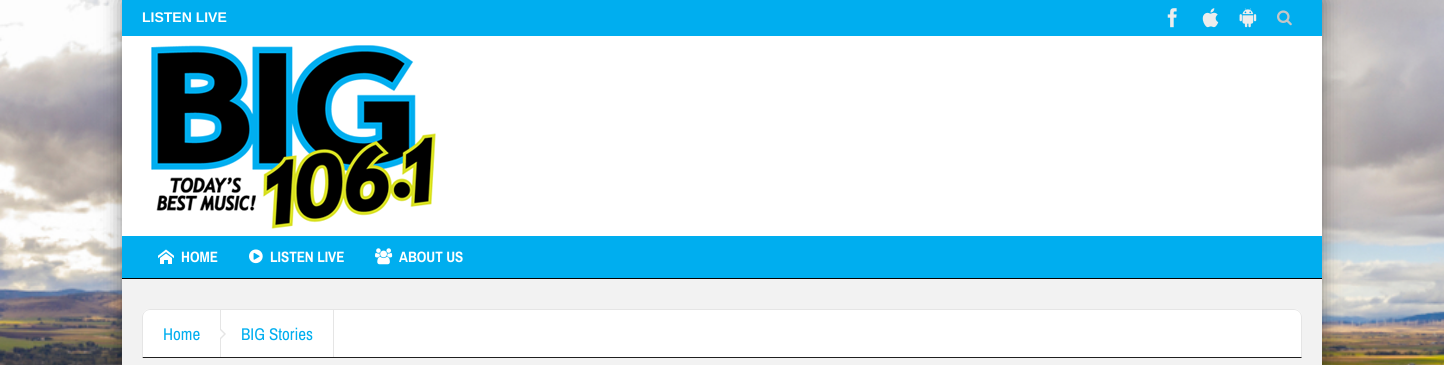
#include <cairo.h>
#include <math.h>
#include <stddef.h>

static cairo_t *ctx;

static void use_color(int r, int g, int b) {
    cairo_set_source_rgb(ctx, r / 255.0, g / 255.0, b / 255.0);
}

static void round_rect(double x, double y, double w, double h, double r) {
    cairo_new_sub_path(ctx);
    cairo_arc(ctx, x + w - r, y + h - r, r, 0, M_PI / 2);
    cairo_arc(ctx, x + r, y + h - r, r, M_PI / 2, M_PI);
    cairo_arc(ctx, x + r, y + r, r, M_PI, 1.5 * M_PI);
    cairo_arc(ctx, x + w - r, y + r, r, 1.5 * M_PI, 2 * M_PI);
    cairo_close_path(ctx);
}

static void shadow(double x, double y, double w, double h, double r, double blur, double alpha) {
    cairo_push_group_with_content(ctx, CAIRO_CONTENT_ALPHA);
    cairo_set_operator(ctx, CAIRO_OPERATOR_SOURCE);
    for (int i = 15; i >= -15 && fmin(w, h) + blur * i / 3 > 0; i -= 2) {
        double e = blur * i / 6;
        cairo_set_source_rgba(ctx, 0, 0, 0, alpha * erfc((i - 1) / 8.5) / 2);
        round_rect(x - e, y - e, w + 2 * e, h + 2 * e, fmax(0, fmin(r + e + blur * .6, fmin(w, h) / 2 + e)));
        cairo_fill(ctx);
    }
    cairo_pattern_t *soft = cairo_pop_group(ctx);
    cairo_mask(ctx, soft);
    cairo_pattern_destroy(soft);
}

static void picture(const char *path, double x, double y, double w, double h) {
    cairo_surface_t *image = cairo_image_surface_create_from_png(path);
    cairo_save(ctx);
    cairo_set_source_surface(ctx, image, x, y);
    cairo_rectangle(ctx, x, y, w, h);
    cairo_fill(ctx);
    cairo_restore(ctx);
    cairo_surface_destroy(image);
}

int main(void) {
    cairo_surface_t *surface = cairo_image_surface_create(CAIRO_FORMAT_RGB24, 1444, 365);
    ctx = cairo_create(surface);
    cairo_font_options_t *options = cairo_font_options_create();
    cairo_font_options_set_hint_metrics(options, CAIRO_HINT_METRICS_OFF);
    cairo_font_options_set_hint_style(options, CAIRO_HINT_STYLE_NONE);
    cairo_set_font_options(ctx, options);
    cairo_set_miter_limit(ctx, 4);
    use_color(255, 255, 255);
    cairo_paint(ctx);
    picture("img1.png", 0, 0, 1444, 365);
    use_color(0, 0, 0);
    shadow(122, 0, 1200, 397, 0, 10.5, 0.44);
    use_color(242, 242, 242);
    cairo_rectangle(ctx, 122, 279, 1200, 86);
    cairo_fill(ctx);
    use_color(0, 174, 239);
    cairo_rectangle(ctx, 122, 0, 1200, 36);
    cairo_fill(ctx);
    cairo_select_font_face(ctx, "Liberation Sans", CAIRO_FONT_SLANT_NORMAL, CAIRO_FONT_WEIGHT_BOLD);
    cairo_set_font_size(ctx, 14);
    use_color(255, 255, 255);
    cairo_move_to(ctx, 142, 22);
    cairo_show_text(ctx, "LISTEN LIVE");
    picture("img2.png", 1167, 8, 10, 20);
    picture("img3.png", 1202, 8, 17, 20);
    picture("img4.png", 1239, 8, 18, 20);
    picture("img5.png", 1277, 10, 15, 16);
    cairo_rectangle(ctx, 122, 36, 1200, 200);
    cairo_fill(ctx);
    picture("img6.png", 151, 45, 285, 184);
    use_color(0, 174, 239);
    cairo_rectangle(ctx, 122, 236, 1200, 42);
    cairo_fill(ctx);
    use_color(0, 0, 0);
    cairo_rectangle(ctx, 122, 278, 1200, 1);
    cairo_fill(ctx);
    picture("img7.png", 158, 249, 16, 15);
    cairo_select_font_face(ctx, "Archivo Narrow", CAIRO_FONT_SLANT_NORMAL, CAIRO_FONT_WEIGHT_BOLD);
    cairo_set_font_size(ctx, 15);
    use_color(255, 255, 255);
    cairo_move_to(ctx, 181, 262);
    cairo_show_text(ctx, "HOME");
    picture("img8.png", 249, 249, 14, 15);
    cairo_move_to(ctx, 270, 262);
    cairo_show_text(ctx, "LISTEN LIVE");
    picture("img9.png", 375, 248, 18, 17);
    cairo_move_to(ctx, 399, 262);
    cairo_show_text(ctx, "ABOUT US");
    cairo_new_path(ctx);
    cairo_move_to(ctx, 150, 309);
    cairo_line_to(ctx, 1294, 309);
    cairo_curve_to(ctx, 1298.5, 309, 1302, 312.5, 1302, 317);
    cairo_line_to(ctx, 1302, 358);
    cairo_line_to(ctx, 142, 358);
    cairo_line_to(ctx, 142, 317);
    cairo_curve_to(ctx, 142, 312.5, 145.5, 309, 150, 309);
    cairo_close_path(ctx);
    cairo_fill(ctx);
    use_color(229, 229, 229);
    cairo_new_path(ctx);
    cairo_move_to(ctx, 150, 309);
    cairo_curve_to(ctx, 148, 309, 146, 310, 144, 312);
    cairo_line_to(ctx, 145, 312);
    cairo_curve_to(ctx, 146, 311, 148, 310, 150, 310);
    cairo_line_to(ctx, 1294, 310);
    cairo_curve_to(ctx, 1296, 310, 1298, 311, 1299, 312);
    cairo_line_to(ctx, 1300, 312);
    cairo_curve_to(ctx, 1298, 310, 1296, 309, 1294, 309);
    cairo_close_path(ctx);
    cairo_fill(ctx);
    cairo_new_path(ctx);
    cairo_move_to(ctx, 1302, 358);
    cairo_line_to(ctx, 1302, 317);
    cairo_curve_to(ctx, 1302, 315, 1301, 313, 1300, 312);
    cairo_line_to(ctx, 1299, 312);
    cairo_curve_to(ctx, 1300, 313, 1301, 315, 1301, 317);
    cairo_line_to(ctx, 1301, 357);
    cairo_close_path(ctx);
    cairo_fill(ctx);
    use_color(31, 31, 31);
    cairo_new_path(ctx);
    cairo_move_to(ctx, 1302, 358);
    cairo_line_to(ctx, 1301, 357);
    cairo_line_to(ctx, 143, 357);
    cairo_line_to(ctx, 142, 358);
    cairo_close_path(ctx);
    cairo_fill(ctx);
    use_color(229, 229, 229);
    cairo_new_path(ctx);
    cairo_move_to(ctx, 142, 358);
    cairo_line_to(ctx, 143, 357);
    cairo_line_to(ctx, 143, 317);
    cairo_curve_to(ctx, 143, 315, 144, 313, 145, 312);
    cairo_line_to(ctx, 144, 312);
    cairo_curve_to(ctx, 143, 313, 142, 315, 142, 317);
    cairo_close_path(ctx);
    cairo_fill(ctx);
    cairo_rectangle(ctx, 220, 310, 1, 47);
    cairo_fill(ctx);
    cairo_select_font_face(ctx, "Archivo Narrow", CAIRO_FONT_SLANT_NORMAL, CAIRO_FONT_WEIGHT_NORMAL);
    cairo_set_font_size(ctx, 17);
    use_color(0, 174, 239);
    cairo_move_to(ctx, 163, 340);
    cairo_show_text(ctx, "Home");
    use_color(229, 229, 229);
    cairo_new_path(ctx);
    cairo_move_to(ctx, 220, 340);
    cairo_line_to(ctx, 220, 328);
    cairo_line_to(ctx, 226, 334);
    cairo_close_path(ctx);
    cairo_fill(ctx);
    use_color(255, 255, 255);
    cairo_new_path(ctx);
    cairo_move_to(ctx, 220, 338);
    cairo_line_to(ctx, 220, 330);
    cairo_line_to(ctx, 224, 334);
    cairo_close_path(ctx);
    cairo_fill(ctx);
    use_color(229, 229, 229);
    cairo_rectangle(ctx, 333, 310, 1, 47);
    cairo_fill(ctx);
    use_color(0, 174, 239);
    cairo_move_to(ctx, 241, 340);
    cairo_show_text(ctx, "BIG Stories");
    cairo_surface_write_to_png(surface, "result.png");
    cairo_font_options_destroy(options);
    cairo_destroy(ctx);
    cairo_surface_destroy(surface);
    return 0;
}
